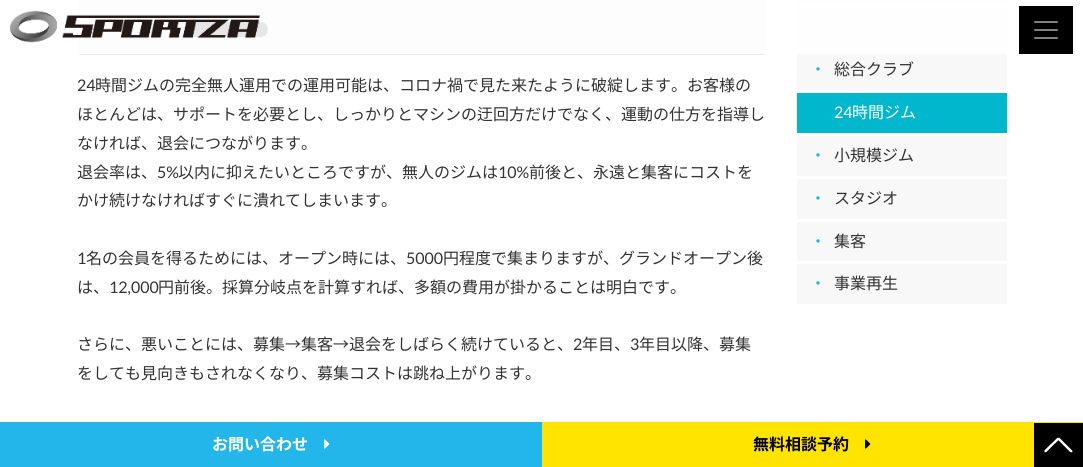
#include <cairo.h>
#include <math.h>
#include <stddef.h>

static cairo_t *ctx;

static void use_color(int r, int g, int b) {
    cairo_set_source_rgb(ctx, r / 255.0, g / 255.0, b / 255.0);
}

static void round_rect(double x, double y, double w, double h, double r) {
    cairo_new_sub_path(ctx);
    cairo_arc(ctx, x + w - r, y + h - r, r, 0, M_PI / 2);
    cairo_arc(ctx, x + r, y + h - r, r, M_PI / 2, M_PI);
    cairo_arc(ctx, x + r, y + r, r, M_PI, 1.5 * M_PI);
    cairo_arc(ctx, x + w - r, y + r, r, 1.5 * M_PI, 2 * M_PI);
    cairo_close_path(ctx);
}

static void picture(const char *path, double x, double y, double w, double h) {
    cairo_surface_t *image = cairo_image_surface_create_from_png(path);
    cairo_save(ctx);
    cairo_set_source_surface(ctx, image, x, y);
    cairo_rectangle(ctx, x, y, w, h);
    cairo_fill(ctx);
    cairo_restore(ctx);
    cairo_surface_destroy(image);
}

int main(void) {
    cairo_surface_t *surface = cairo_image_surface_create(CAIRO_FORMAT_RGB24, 1083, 467);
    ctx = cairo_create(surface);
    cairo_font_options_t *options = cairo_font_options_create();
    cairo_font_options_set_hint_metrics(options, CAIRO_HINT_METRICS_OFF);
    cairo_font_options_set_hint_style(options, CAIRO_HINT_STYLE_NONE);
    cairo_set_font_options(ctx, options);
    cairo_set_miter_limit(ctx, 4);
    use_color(255, 255, 255);
    cairo_paint(ctx);
    use_color(233, 236, 239);
    round_rect(77, 0, 690, 55, 4);
    cairo_fill(ctx);
    use_color(0, 0, 0);
    round_rect(188, 22, 80, 15, 7.5);
    cairo_fill(ctx);
    use_color(248, 248, 248);
    cairo_rectangle(ctx, 797, 0, 210, 5);
    cairo_fill(ctx);
    cairo_rectangle(ctx, 797, 8, 210, 39);
    cairo_fill(ctx);
    cairo_rectangle(ctx, 797, 50, 210, 40);
    cairo_fill(ctx);
    cairo_set_source_rgba(ctx, 1, 1, 1, 0.9);
    cairo_rectangle(ctx, 77, 0, 930, 54);
    cairo_fill(ctx);
    picture("img1.png", 10, 10, 250, 33);
    use_color(0, 0, 0);
    cairo_rectangle(ctx, 1019, 6, 54, 48);
    cairo_fill(ctx);
    picture("img2.png", 1034, 21, 24, 18);
    cairo_select_font_face(ctx, "Lato", CAIRO_FONT_SLANT_NORMAL, CAIRO_FONT_WEIGHT_NORMAL);
    cairo_set_font_size(ctx, 16);
    use_color(51, 51, 51);
    cairo_move_to(ctx, 77, 91);
    cairo_show_text(ctx, "24");
    cairo_select_font_face(ctx, "Noto Sans JP", CAIRO_FONT_SLANT_NORMAL, CAIRO_FONT_WEIGHT_NORMAL);
    cairo_move_to(ctx, 95, 91);
    cairo_show_text(ctx, "時間ジムの完全無人運用での運用可能は、コロナ禍で見た来たように破綻します。お客様の");
    cairo_move_to(ctx, 77, 120);
    cairo_show_text(ctx, "ほとんどは、サポートを必要とし、しっかりとマシンの迂回方だけでなく、運動の仕方を指導し");
    cairo_move_to(ctx, 77, 149);
    cairo_show_text(ctx, "なければ、退会につながります。");
    cairo_move_to(ctx, 77, 178);
    cairo_show_text(ctx, "退会率は、");
    cairo_select_font_face(ctx, "Lato", CAIRO_FONT_SLANT_NORMAL, CAIRO_FONT_WEIGHT_NORMAL);
    cairo_move_to(ctx, 157, 178);
    cairo_show_text(ctx, "5%");
    cairo_select_font_face(ctx, "Noto Sans JP", CAIRO_FONT_SLANT_NORMAL, CAIRO_FONT_WEIGHT_NORMAL);
    cairo_move_to(ctx, 178, 178);
    cairo_show_text(ctx, "以内に抑えたいところですが、無人のジムは");
    cairo_select_font_face(ctx, "Lato", CAIRO_FONT_SLANT_NORMAL, CAIRO_FONT_WEIGHT_NORMAL);
    cairo_move_to(ctx, 498, 178);
    cairo_show_text(ctx, "10%");
    cairo_select_font_face(ctx, "Noto Sans JP", CAIRO_FONT_SLANT_NORMAL, CAIRO_FONT_WEIGHT_NORMAL);
    cairo_move_to(ctx, 529, 178);
    cairo_show_text(ctx, "前後と、永遠と集客にコストを");
    cairo_move_to(ctx, 77, 206);
    cairo_show_text(ctx, "かけ続けなければすぐに潰れてしまいます。");
    cairo_select_font_face(ctx, "Lato", CAIRO_FONT_SLANT_NORMAL, CAIRO_FONT_WEIGHT_NORMAL);
    cairo_move_to(ctx, 77, 264);
    cairo_show_text(ctx, "1");
    cairo_select_font_face(ctx, "Noto Sans JP", CAIRO_FONT_SLANT_NORMAL, CAIRO_FONT_WEIGHT_NORMAL);
    cairo_move_to(ctx, 86, 264);
    cairo_show_text(ctx, "名の会員を得るためには、オープン時には、");
    cairo_select_font_face(ctx, "Lato", CAIRO_FONT_SLANT_NORMAL, CAIRO_FONT_WEIGHT_NORMAL);
    cairo_move_to(ctx, 406, 264);
    cairo_show_text(ctx, "5000");
    cairo_select_font_face(ctx, "Noto Sans JP", CAIRO_FONT_SLANT_NORMAL, CAIRO_FONT_WEIGHT_NORMAL);
    cairo_move_to(ctx, 443, 264);
    cairo_show_text(ctx, "円程度で集まりますが、グランドオープン後");
    cairo_move_to(ctx, 77, 293);
    cairo_show_text(ctx, "は、");
    cairo_select_font_face(ctx, "Lato", CAIRO_FONT_SLANT_NORMAL, CAIRO_FONT_WEIGHT_NORMAL);
    cairo_move_to(ctx, 109, 293);
    cairo_show_text(ctx, "12,000");
    cairo_select_font_face(ctx, "Noto Sans JP", CAIRO_FONT_SLANT_NORMAL, CAIRO_FONT_WEIGHT_NORMAL);
    cairo_move_to(ctx, 158, 293);
    cairo_show_text(ctx, "円前後。採算分岐点を計算すれば、多額の費用が掛かることは明白です。");
    cairo_move_to(ctx, 77, 350);
    cairo_show_text(ctx, "さらに、悪いことには、募集→集客→退会をしばらく続けていると、");
    cairo_select_font_face(ctx, "Lato", CAIRO_FONT_SLANT_NORMAL, CAIRO_FONT_WEIGHT_NORMAL);
    cairo_move_to(ctx, 573, 350);
    cairo_show_text(ctx, "2");
    cairo_select_font_face(ctx, "Noto Sans JP", CAIRO_FONT_SLANT_NORMAL, CAIRO_FONT_WEIGHT_NORMAL);
    cairo_move_to(ctx, 582, 350);
    cairo_show_text(ctx, "年目、");
    cairo_select_font_face(ctx, "Lato", CAIRO_FONT_SLANT_NORMAL, CAIRO_FONT_WEIGHT_NORMAL);
    cairo_move_to(ctx, 630, 350);
    cairo_show_text(ctx, "3");
    cairo_select_font_face(ctx, "Noto Sans JP", CAIRO_FONT_SLANT_NORMAL, CAIRO_FONT_WEIGHT_NORMAL);
    cairo_move_to(ctx, 639, 350);
    cairo_show_text(ctx, "年目以降、募集");
    cairo_move_to(ctx, 77, 379);
    cairo_show_text(ctx, "をしても見向きもされなくなり、募集コストは跳ね上がります。");
    use_color(35, 182, 234);
    cairo_move_to(ctx, 810, 75);
    cairo_show_text(ctx, "・");
    use_color(51, 51, 51);
    cairo_move_to(ctx, 834, 75);
    cairo_show_text(ctx, "総合クラブ");
    use_color(0, 183, 206);
    cairo_rectangle(ctx, 797, 93, 210, 40);
    cairo_fill(ctx);
    cairo_select_font_face(ctx, "Lato", CAIRO_FONT_SLANT_NORMAL, CAIRO_FONT_WEIGHT_NORMAL);
    use_color(255, 255, 255);
    cairo_move_to(ctx, 834, 118);
    cairo_show_text(ctx, "24");
    cairo_select_font_face(ctx, "Noto Sans JP", CAIRO_FONT_SLANT_NORMAL, CAIRO_FONT_WEIGHT_NORMAL);
    cairo_move_to(ctx, 852, 118);
    cairo_show_text(ctx, "時間ジム");
    use_color(248, 248, 248);
    cairo_rectangle(ctx, 797, 136, 210, 40);
    cairo_fill(ctx);
    use_color(35, 182, 234);
    cairo_move_to(ctx, 810, 161);
    cairo_show_text(ctx, "・");
    use_color(51, 51, 51);
    cairo_move_to(ctx, 834, 161);
    cairo_show_text(ctx, "小規模ジム");
    use_color(248, 248, 248);
    cairo_rectangle(ctx, 797, 179, 210, 40);
    cairo_fill(ctx);
    use_color(35, 182, 234);
    cairo_move_to(ctx, 810, 204);
    cairo_show_text(ctx, "・");
    use_color(51, 51, 51);
    cairo_move_to(ctx, 834, 204);
    cairo_show_text(ctx, "スタジオ");
    use_color(248, 248, 248);
    cairo_rectangle(ctx, 797, 222, 210, 39);
    cairo_fill(ctx);
    use_color(35, 182, 234);
    cairo_move_to(ctx, 810, 247);
    cairo_show_text(ctx, "・");
    use_color(51, 51, 51);
    cairo_move_to(ctx, 834, 247);
    cairo_show_text(ctx, "集客");
    use_color(248, 248, 248);
    cairo_rectangle(ctx, 797, 264, 210, 40);
    cairo_fill(ctx);
    use_color(35, 182, 234);
    cairo_move_to(ctx, 810, 289);
    cairo_show_text(ctx, "・");
    use_color(51, 51, 51);
    cairo_move_to(ctx, 834, 289);
    cairo_show_text(ctx, "事業再生");
    use_color(35, 182, 234);
    cairo_rectangle(ctx, 0, 422, 542, 45);
    cairo_fill(ctx);
    cairo_select_font_face(ctx, "Noto Sans JP", CAIRO_FONT_SLANT_NORMAL, CAIRO_FONT_WEIGHT_BOLD);
    use_color(255, 255, 255);
    cairo_move_to(ctx, 212, 450);
    cairo_show_text(ctx, "お問い合わせ");
    picture("img3.png", 324, 439, 6, 10);
    use_color(255, 228, 0);
    cairo_rectangle(ctx, 542, 422, 541, 45);
    cairo_fill(ctx);
    use_color(0, 0, 0);
    cairo_move_to(ctx, 753, 450);
    cairo_show_text(ctx, "無料相談予約");
    picture("img4.png", 865, 439, 6, 10);
    picture("img5.png", 1034, 423, 49, 44);
    cairo_surface_write_to_png(surface, "result.png");
    cairo_font_options_destroy(options);
    cairo_destroy(ctx);
    cairo_surface_destroy(surface);
    return 0;
}
